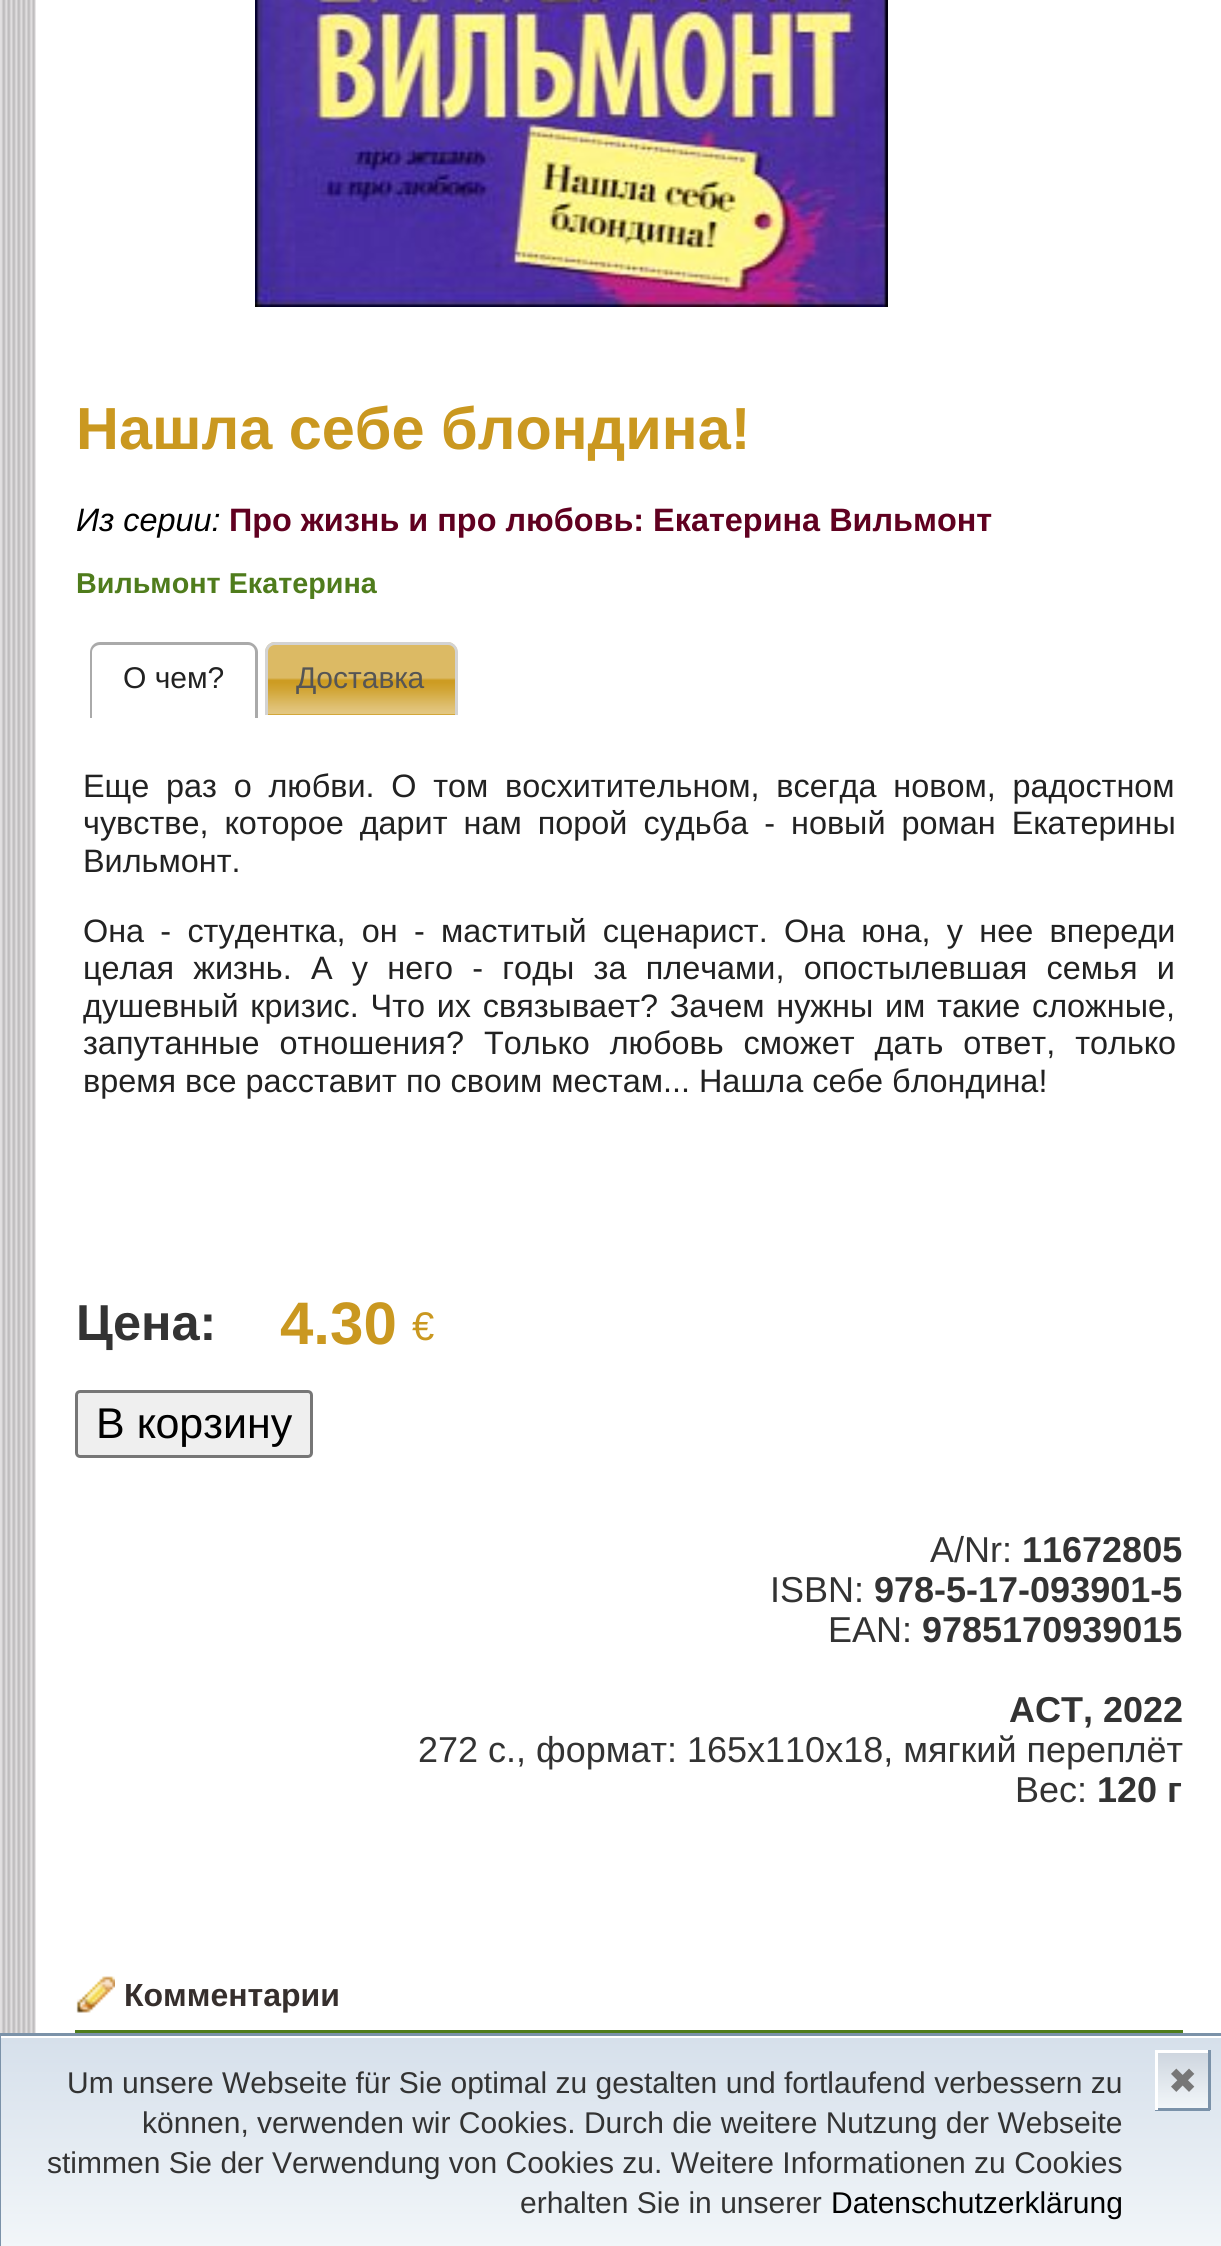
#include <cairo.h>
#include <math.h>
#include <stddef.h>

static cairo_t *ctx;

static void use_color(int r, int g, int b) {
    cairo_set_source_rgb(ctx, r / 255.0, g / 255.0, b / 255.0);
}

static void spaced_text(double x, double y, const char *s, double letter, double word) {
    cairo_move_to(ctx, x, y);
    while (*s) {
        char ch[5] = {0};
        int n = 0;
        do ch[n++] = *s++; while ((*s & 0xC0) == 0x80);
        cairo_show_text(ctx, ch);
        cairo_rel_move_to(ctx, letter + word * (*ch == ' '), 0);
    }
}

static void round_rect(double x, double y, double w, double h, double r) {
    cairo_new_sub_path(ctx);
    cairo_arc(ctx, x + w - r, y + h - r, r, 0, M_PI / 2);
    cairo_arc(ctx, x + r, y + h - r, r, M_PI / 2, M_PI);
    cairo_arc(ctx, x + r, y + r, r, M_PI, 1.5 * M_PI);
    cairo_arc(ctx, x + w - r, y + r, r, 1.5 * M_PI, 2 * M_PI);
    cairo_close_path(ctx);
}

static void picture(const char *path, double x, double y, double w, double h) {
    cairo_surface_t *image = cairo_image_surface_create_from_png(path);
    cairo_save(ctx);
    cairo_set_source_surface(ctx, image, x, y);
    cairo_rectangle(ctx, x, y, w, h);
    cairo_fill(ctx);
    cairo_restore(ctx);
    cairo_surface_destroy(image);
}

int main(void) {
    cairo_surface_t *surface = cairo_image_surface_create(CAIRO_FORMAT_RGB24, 1221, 2246);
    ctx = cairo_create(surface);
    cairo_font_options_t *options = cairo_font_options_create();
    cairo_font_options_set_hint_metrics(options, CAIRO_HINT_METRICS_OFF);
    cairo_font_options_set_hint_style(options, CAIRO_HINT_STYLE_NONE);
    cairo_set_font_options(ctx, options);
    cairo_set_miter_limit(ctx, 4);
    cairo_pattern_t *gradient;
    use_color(255, 255, 255);
    cairo_paint(ctx);
    picture("img1.png", 0, 0, 36, 2033);
    picture("img2.png", 255, 0, 633, 307);
    cairo_select_font_face(ctx, "Liberation Sans", CAIRO_FONT_SLANT_NORMAL, CAIRO_FONT_WEIGHT_BOLD);
    cairo_set_font_size(ctx, 59.4);
    use_color(202, 152, 32);
    cairo_move_to(ctx, 76, 449);
    cairo_show_text(ctx, "Нашла себе блондина!");
    cairo_select_font_face(ctx, "Liberation Sans", CAIRO_FONT_SLANT_ITALIC, CAIRO_FONT_WEIGHT_NORMAL);
    cairo_set_font_size(ctx, 32.4);
    use_color(0, 0, 0);
    cairo_move_to(ctx, 76, 531);
    cairo_show_text(ctx, "Из серии:");
    cairo_select_font_face(ctx, "Liberation Sans", CAIRO_FONT_SLANT_NORMAL, CAIRO_FONT_WEIGHT_BOLD);
    use_color(96, 0, 32);
    cairo_move_to(ctx, 229, 531);
    cairo_show_text(ctx, "Про жизнь и про любовь: Екатерина Вильмонт");
    cairo_set_font_size(ctx, 28.75);
    use_color(79, 124, 28);
    cairo_move_to(ctx, 76, 593);
    cairo_show_text(ctx, "Вильмонт Екатерина");
    use_color(170, 170, 170);
    cairo_set_fill_rule(ctx, CAIRO_FILL_RULE_EVEN_ODD);
    cairo_new_path(ctx);
    cairo_move_to(ctx, 100, 642);
    cairo_line_to(ctx, 248, 642);
    cairo_curve_to(ctx, 253, 642, 258, 647, 258, 652);
    cairo_line_to(ctx, 258, 718);
    cairo_line_to(ctx, 90, 718);
    cairo_line_to(ctx, 90, 652);
    cairo_curve_to(ctx, 90, 647, 94, 642, 100, 642);
    cairo_close_path(ctx);
    cairo_move_to(ctx, 100, 645);
    cairo_line_to(ctx, 248, 645);
    cairo_curve_to(ctx, 252, 645, 255, 648, 255, 652);
    cairo_line_to(ctx, 255, 718);
    cairo_line_to(ctx, 92, 718);
    cairo_line_to(ctx, 92, 652);
    cairo_curve_to(ctx, 92, 648, 96, 645, 100, 645);
    cairo_close_path(ctx);
    cairo_fill(ctx);
    cairo_select_font_face(ctx, "Liberation Sans", CAIRO_FONT_SLANT_NORMAL, CAIRO_FONT_WEIGHT_NORMAL);
    cairo_set_font_size(ctx, 30);
    use_color(34, 34, 34);
    cairo_move_to(ctx, 123, 688);
    cairo_show_text(ctx, "О чем?");
    use_color(205, 156, 34);
    cairo_new_path(ctx);
    cairo_move_to(ctx, 276, 645);
    cairo_line_to(ctx, 447, 645);
    cairo_curve_to(ctx, 451.5, 645, 455, 648.5, 455, 653);
    cairo_line_to(ctx, 455, 715);
    cairo_line_to(ctx, 268, 715);
    cairo_line_to(ctx, 268, 653);
    cairo_curve_to(ctx, 268, 648.5, 271.5, 645, 276, 645);
    cairo_close_path(ctx);
    cairo_fill(ctx);
    picture("img3.png", 265, 642, 193, 73);
    use_color(211, 211, 211);
    cairo_new_path(ctx);
    cairo_move_to(ctx, 275, 642);
    cairo_line_to(ctx, 448, 642);
    cairo_curve_to(ctx, 453, 642, 458, 647, 458, 652);
    cairo_line_to(ctx, 458, 715);
    cairo_line_to(ctx, 265, 715);
    cairo_line_to(ctx, 265, 652);
    cairo_curve_to(ctx, 265, 647, 269, 642, 275, 642);
    cairo_close_path(ctx);
    cairo_move_to(ctx, 275, 645);
    cairo_line_to(ctx, 448, 645);
    cairo_curve_to(ctx, 452, 645, 455, 648, 455, 652);
    cairo_line_to(ctx, 455, 715);
    cairo_line_to(ctx, 268, 715);
    cairo_line_to(ctx, 268, 652);
    cairo_curve_to(ctx, 268, 648, 271, 645, 275, 645);
    cairo_close_path(ctx);
    cairo_fill(ctx);
    use_color(85, 85, 85);
    cairo_move_to(ctx, 296, 688);
    cairo_show_text(ctx, "Доставка");
    cairo_set_font_size(ctx, 32.4);
    use_color(34, 34, 34);
    spaced_text(83, 797, "Еще раз о любви. О том восхитительном, всегда новом, радостном", 0, 7.75);
    spaced_text(83, 834, "чувстве, которое дарит нам порой судьба - новый роман Екатерины", 0, 7);
    cairo_move_to(ctx, 83, 872);
    cairo_show_text(ctx, "Вильмонт.");
    spaced_text(83, 942, "Она - студентка, он - маститый сценарист. Она юна, у нее впереди", 0, 7.25);
    spaced_text(83, 979, "целая жизнь. А у него - годы за плечами, опостылевшая семья и", 0, 10.25);
    spaced_text(83, 1017, "душевный кризис. Что их связывает? Зачем нужны им такие сложные,", 0, 2.75);
    spaced_text(83, 1054, "запутанные отношения? Только любовь сможет дать ответ, только", 0, 11);
    cairo_move_to(ctx, 83, 1092);
    cairo_show_text(ctx, "время все расставит по своим местам... Нашла себе блондина!");
    cairo_select_font_face(ctx, "Liberation Sans", CAIRO_FONT_SLANT_NORMAL, CAIRO_FONT_WEIGHT_BOLD);
    cairo_set_font_size(ctx, 50.5);
    use_color(51, 51, 51);
    cairo_move_to(ctx, 76, 1340);
    cairo_show_text(ctx, "Цена:");
    cairo_set_font_size(ctx, 60);
    use_color(202, 152, 32);
    cairo_move_to(ctx, 280, 1344);
    cairo_show_text(ctx, "4.30");
    cairo_select_font_face(ctx, "Liberation Sans", CAIRO_FONT_SLANT_NORMAL, CAIRO_FONT_WEIGHT_NORMAL);
    cairo_set_font_size(ctx, 40);
    cairo_move_to(ctx, 412, 1340);
    cairo_show_text(ctx, "€");
    use_color(239, 239, 239);
    round_rect(76.5, 1391.5, 235, 65, 3.5);
    cairo_fill_preserve(ctx);
    use_color(118, 118, 118);
    cairo_set_line_width(ctx, 3);
    cairo_stroke(ctx);
    cairo_set_font_size(ctx, 43);
    use_color(0, 0, 0);
    cairo_move_to(ctx, 96, 1438);
    cairo_show_text(ctx, "В корзину");
    cairo_set_font_size(ctx, 36);
    use_color(51, 51, 51);
    cairo_move_to(ctx, 930, 1562);
    cairo_show_text(ctx, "A/Nr:");
    cairo_select_font_face(ctx, "Liberation Sans", CAIRO_FONT_SLANT_NORMAL, CAIRO_FONT_WEIGHT_BOLD);
    cairo_move_to(ctx, 1022, 1562);
    cairo_show_text(ctx, "11672805");
    cairo_select_font_face(ctx, "Liberation Sans", CAIRO_FONT_SLANT_NORMAL, CAIRO_FONT_WEIGHT_NORMAL);
    cairo_move_to(ctx, 770, 1602);
    cairo_show_text(ctx, "ISBN:");
    cairo_select_font_face(ctx, "Liberation Sans", CAIRO_FONT_SLANT_NORMAL, CAIRO_FONT_WEIGHT_BOLD);
    cairo_move_to(ctx, 874, 1602);
    cairo_show_text(ctx, "978-5-17-093901-5");
    cairo_select_font_face(ctx, "Liberation Sans", CAIRO_FONT_SLANT_NORMAL, CAIRO_FONT_WEIGHT_NORMAL);
    cairo_move_to(ctx, 828, 1642);
    cairo_show_text(ctx, "EAN:");
    cairo_select_font_face(ctx, "Liberation Sans", CAIRO_FONT_SLANT_NORMAL, CAIRO_FONT_WEIGHT_BOLD);
    cairo_move_to(ctx, 922, 1642);
    cairo_show_text(ctx, "9785170939015");
    cairo_move_to(ctx, 1009, 1722);
    cairo_show_text(ctx, "АСТ, 2022");
    cairo_select_font_face(ctx, "Liberation Sans", CAIRO_FONT_SLANT_NORMAL, CAIRO_FONT_WEIGHT_NORMAL);
    cairo_move_to(ctx, 418, 1762);
    cairo_show_text(ctx, "272 с., формат: 165x110x18, мягкий переплёт");
    cairo_move_to(ctx, 1015, 1802);
    cairo_show_text(ctx, "Вес:");
    cairo_select_font_face(ctx, "Liberation Sans", CAIRO_FONT_SLANT_NORMAL, CAIRO_FONT_WEIGHT_BOLD);
    cairo_move_to(ctx, 1097, 1802);
    cairo_show_text(ctx, "120 г");
    picture("img4.png", 76, 1976, 39, 37);
    use_color(79, 124, 28);
    cairo_rectangle(ctx, 75, 2030, 1108, 3);
    cairo_fill(ctx);
    cairo_set_font_size(ctx, 32);
    use_color(54, 47, 45);
    cairo_move_to(ctx, 124, 2006);
    cairo_show_text(ctx, "Комментарии");
    gradient = cairo_pattern_create_linear(611, 2038, 611, 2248);
    cairo_pattern_add_color_stop_rgba(gradient, 0, 0.839, 0.878, 0.922, 1);
    cairo_pattern_add_color_stop_rgba(gradient, 1, 0.949, 0.965, 0.976, 1);
    cairo_set_source(ctx, gradient);
    cairo_pattern_destroy(gradient);
    cairo_rectangle(ctx, 1, 2038, 1220, 208);
    cairo_fill(ctx);
    cairo_rectangle(ctx, -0.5, 2034.5, 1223, 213);
    use_color(123, 146, 169);
    cairo_stroke(ctx);
    cairo_select_font_face(ctx, "Liberation Sans", CAIRO_FONT_SLANT_NORMAL, CAIRO_FONT_WEIGHT_NORMAL);
    cairo_set_font_size(ctx, 30);
    use_color(51, 51, 51);
    cairo_move_to(ctx, 67, 2093);
    cairo_show_text(ctx, "Um unsere Webseite für Sie optimal zu gestalten und fortlaufend verbessern zu");
    gradient = cairo_pattern_create_linear(1158, 2053, 1158, 2108);
    cairo_pattern_add_color_stop_rgba(gradient, 0, 0.808, 0.839, 0.875, 1);
    cairo_pattern_add_color_stop_rgba(gradient, 1, 0.949, 0.965, 0.976, 1);
    cairo_set_source(ctx, gradient);
    cairo_pattern_destroy(gradient);
    cairo_rectangle(ctx, 1158, 2053, 50, 55);
    cairo_fill(ctx);
    use_color(255, 255, 255);
    cairo_rectangle(ctx, 1155, 2050, 55, 3);
    cairo_fill(ctx);
    use_color(123, 146, 169);
    cairo_rectangle(ctx, 1208, 2050, 3, 60);
    cairo_fill(ctx);
    cairo_rectangle(ctx, 1155, 2108, 55, 3);
    cairo_fill(ctx);
    use_color(255, 255, 255);
    cairo_rectangle(ctx, 1155, 2050, 3, 60);
    cairo_fill(ctx);
    cairo_select_font_face(ctx, "DejaVu Sans", CAIRO_FONT_SLANT_NORMAL, CAIRO_FONT_WEIGHT_NORMAL);
    cairo_set_font_size(ctx, 35);
    use_color(119, 119, 119);
    cairo_move_to(ctx, 1168, 2093);
    cairo_show_text(ctx, "✖");
    cairo_select_font_face(ctx, "Liberation Sans", CAIRO_FONT_SLANT_NORMAL, CAIRO_FONT_WEIGHT_NORMAL);
    cairo_set_font_size(ctx, 30);
    use_color(51, 51, 51);
    cairo_move_to(ctx, 142, 2133);
    cairo_show_text(ctx, "können, verwenden wir Cookies. Durch die weitere Nutzung der Webseite");
    cairo_move_to(ctx, 47, 2173);
    cairo_show_text(ctx, "stimmen Sie der Verwendung von Cookies zu. Weitere Informationen zu Cookies");
    cairo_move_to(ctx, 520, 2213);
    cairo_show_text(ctx, "erhalten Sie in unserer");
    use_color(0, 0, 0);
    cairo_move_to(ctx, 831, 2213);
    cairo_show_text(ctx, "Datenschutzerklärung");
    cairo_surface_write_to_png(surface, "result.png");
    cairo_font_options_destroy(options);
    cairo_destroy(ctx);
    cairo_surface_destroy(surface);
    return 0;
}
